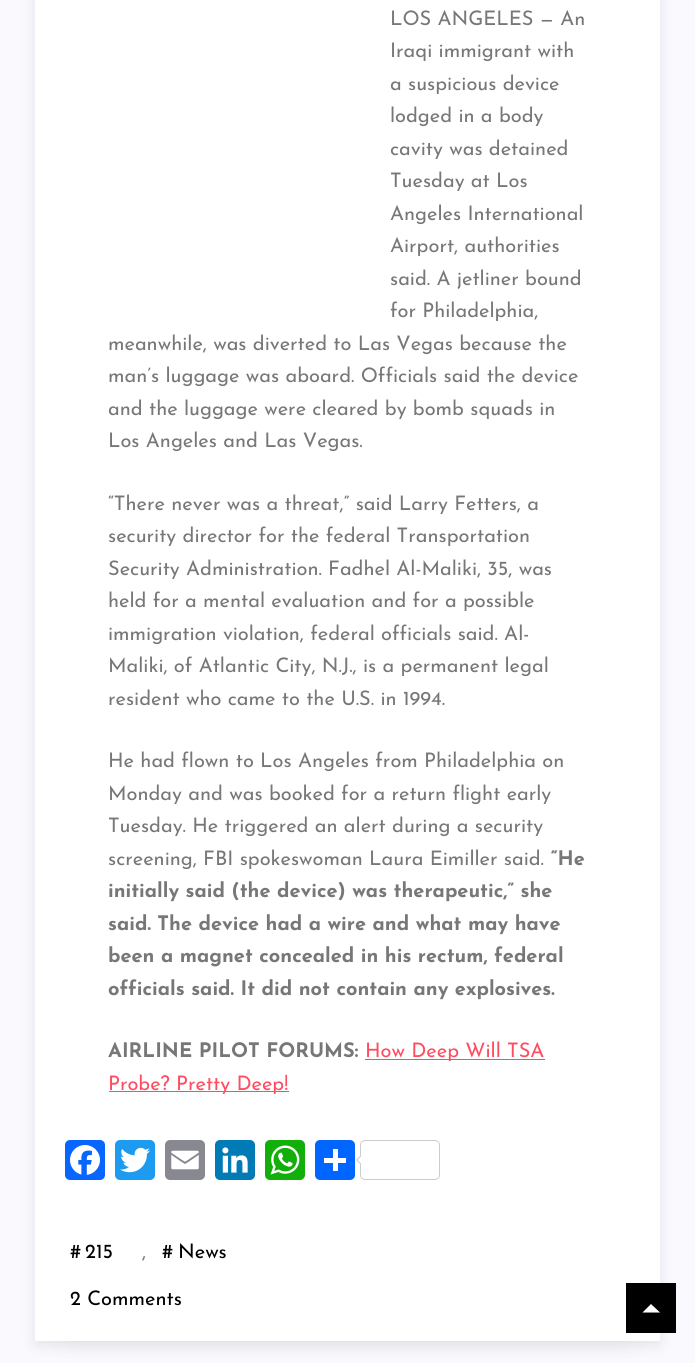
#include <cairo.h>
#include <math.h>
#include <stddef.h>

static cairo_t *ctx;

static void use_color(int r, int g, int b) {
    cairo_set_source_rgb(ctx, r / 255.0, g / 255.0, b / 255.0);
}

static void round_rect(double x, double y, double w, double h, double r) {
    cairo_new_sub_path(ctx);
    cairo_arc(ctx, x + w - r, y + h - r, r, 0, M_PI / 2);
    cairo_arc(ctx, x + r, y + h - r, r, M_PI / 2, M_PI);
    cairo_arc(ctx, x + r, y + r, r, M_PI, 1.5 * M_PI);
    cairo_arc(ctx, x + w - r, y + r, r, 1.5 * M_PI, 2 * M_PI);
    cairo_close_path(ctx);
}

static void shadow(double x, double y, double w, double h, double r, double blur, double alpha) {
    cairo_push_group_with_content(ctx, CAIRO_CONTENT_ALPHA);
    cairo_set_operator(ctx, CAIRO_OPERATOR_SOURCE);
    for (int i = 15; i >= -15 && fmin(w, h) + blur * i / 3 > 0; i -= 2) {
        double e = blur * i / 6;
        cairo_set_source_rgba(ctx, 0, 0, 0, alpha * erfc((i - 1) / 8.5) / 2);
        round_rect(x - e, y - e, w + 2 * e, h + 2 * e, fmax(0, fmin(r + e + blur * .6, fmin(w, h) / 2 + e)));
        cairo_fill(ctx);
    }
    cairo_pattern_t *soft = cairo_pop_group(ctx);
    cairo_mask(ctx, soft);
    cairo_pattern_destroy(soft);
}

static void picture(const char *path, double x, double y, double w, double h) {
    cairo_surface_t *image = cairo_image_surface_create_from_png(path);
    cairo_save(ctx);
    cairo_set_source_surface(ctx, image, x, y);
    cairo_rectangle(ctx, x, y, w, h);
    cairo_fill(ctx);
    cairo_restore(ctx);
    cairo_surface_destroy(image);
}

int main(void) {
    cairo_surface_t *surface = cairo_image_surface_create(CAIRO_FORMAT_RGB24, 695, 1363);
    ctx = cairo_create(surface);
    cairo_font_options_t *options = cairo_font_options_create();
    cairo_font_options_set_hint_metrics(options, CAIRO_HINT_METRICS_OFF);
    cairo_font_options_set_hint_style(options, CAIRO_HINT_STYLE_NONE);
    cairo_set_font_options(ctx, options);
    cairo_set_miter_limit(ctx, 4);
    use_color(249, 249, 254);
    cairo_paint(ctx);
    use_color(7, 10, 25);
    shadow(73, -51, 550, 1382, 0, 17, 0.1);
    shadow(36, -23, 623, 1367, 0, 7.5, 0.1);
    use_color(255, 255, 255);
    cairo_rectangle(ctx, 35, 0, 625, 1341);
    cairo_fill(ctx);
    cairo_select_font_face(ctx, "Josefin Sans", CAIRO_FONT_SLANT_NORMAL, CAIRO_FONT_WEIGHT_NORMAL);
    cairo_set_font_size(ctx, 20);
    use_color(119, 119, 119);
    cairo_move_to(ctx, 390, 25);
    cairo_show_text(ctx, "LOS ANGELES — An");
    cairo_move_to(ctx, 390, 57);
    cairo_show_text(ctx, "Iraqi immigrant with");
    cairo_move_to(ctx, 390, 90);
    cairo_show_text(ctx, "a suspicious device");
    cairo_move_to(ctx, 390, 122);
    cairo_show_text(ctx, "lodged in a body");
    cairo_move_to(ctx, 390, 155);
    cairo_show_text(ctx, "cavity was detained");
    cairo_move_to(ctx, 390, 187);
    cairo_show_text(ctx, "Tuesday at Los");
    cairo_move_to(ctx, 390, 220);
    cairo_show_text(ctx, "Angeles International");
    cairo_move_to(ctx, 390, 252);
    cairo_show_text(ctx, "Airport, authorities");
    cairo_move_to(ctx, 390, 285);
    cairo_show_text(ctx, "said. A jetliner bound");
    cairo_move_to(ctx, 390, 317);
    cairo_show_text(ctx, "for Philadelphia,");
    cairo_move_to(ctx, 108, 350);
    cairo_show_text(ctx, "meanwhile, was diverted to Las Vegas because the");
    cairo_move_to(ctx, 108, 382);
    cairo_show_text(ctx, "man’s luggage was aboard. Officials said the device");
    cairo_move_to(ctx, 108, 415);
    cairo_show_text(ctx, "and the luggage were cleared by bomb squads in");
    cairo_move_to(ctx, 108, 447);
    cairo_show_text(ctx, "Los Angeles and Las Vegas.");
    cairo_move_to(ctx, 108, 510);
    cairo_show_text(ctx, "“There never was a threat,” said Larry Fetters, a");
    cairo_move_to(ctx, 108, 542);
    cairo_show_text(ctx, "security director for the federal Transportation");
    cairo_move_to(ctx, 108, 575);
    cairo_show_text(ctx, "Security Administration. Fadhel Al-Maliki, 35, was");
    cairo_move_to(ctx, 108, 607);
    cairo_show_text(ctx, "held for a mental evaluation and for a possible");
    cairo_move_to(ctx, 108, 640);
    cairo_show_text(ctx, "immigration violation, federal officials said. Al-");
    cairo_move_to(ctx, 108, 672);
    cairo_show_text(ctx, "Maliki, of Atlantic City, N.J., is a permanent legal");
    cairo_move_to(ctx, 108, 705);
    cairo_show_text(ctx, "resident who came to the U.S. in 1994.");
    cairo_move_to(ctx, 108, 767);
    cairo_show_text(ctx, "He had flown to Los Angeles from Philadelphia on");
    cairo_move_to(ctx, 108, 800);
    cairo_show_text(ctx, "Monday and was booked for a return flight early");
    cairo_move_to(ctx, 108, 832);
    cairo_show_text(ctx, "Tuesday. He triggered an alert during a security");
    cairo_move_to(ctx, 108, 865);
    cairo_show_text(ctx, "screening, FBI spokeswoman Laura Eimiller said.");
    cairo_select_font_face(ctx, "Josefin Sans", CAIRO_FONT_SLANT_NORMAL, CAIRO_FONT_WEIGHT_BOLD);
    cairo_move_to(ctx, 551, 865);
    cairo_show_text(ctx, "“He");
    cairo_move_to(ctx, 108, 897);
    cairo_show_text(ctx, "initially said (the device) was therapeutic,” she");
    cairo_move_to(ctx, 108, 930);
    cairo_show_text(ctx, "said. The device had a wire and what may have");
    cairo_move_to(ctx, 108, 962);
    cairo_show_text(ctx, "been a magnet concealed in his rectum, federal");
    cairo_move_to(ctx, 108, 995);
    cairo_show_text(ctx, "officials said. It did not contain any explosives.");
    cairo_move_to(ctx, 108, 1057);
    cairo_show_text(ctx, "AIRLINE PILOT FORUMS:");
    use_color(255, 76, 96);
    cairo_rectangle(ctx, 365, 1059, 180, 1);
    cairo_fill(ctx);
    cairo_select_font_face(ctx, "Josefin Sans", CAIRO_FONT_SLANT_NORMAL, CAIRO_FONT_WEIGHT_NORMAL);
    cairo_move_to(ctx, 365, 1057);
    cairo_show_text(ctx, "How Deep Will TSA");
    cairo_rectangle(ctx, 109, 1091, 180, 1);
    cairo_fill(ctx);
    cairo_move_to(ctx, 108, 1090);
    cairo_show_text(ctx, "Probe? Pretty Deep!");
    use_color(8, 102, 255);
    round_rect(65, 1140, 40, 40, 5);
    cairo_fill(ctx);
    picture("img1.png", 70, 1145, 30, 30);
    use_color(29, 155, 240);
    round_rect(115, 1140, 40, 40, 5);
    cairo_fill(ctx);
    picture("img2.png", 120, 1147, 30, 26);
    use_color(136, 137, 144);
    round_rect(165, 1140, 40, 40, 5);
    cairo_fill(ctx);
    picture("img3.png", 171, 1150, 28, 20);
    use_color(0, 123, 181);
    round_rect(215, 1140, 40, 40, 5);
    cairo_fill(ctx);
    picture("img4.png", 222, 1147, 26, 26);
    use_color(18, 175, 10);
    round_rect(265, 1140, 40, 40, 5);
    cairo_fill(ctx);
    picture("img5.png", 270, 1145, 30, 30);
    use_color(1, 102, 255);
    round_rect(315, 1140, 40, 40, 5);
    cairo_fill(ctx);
    use_color(255, 255, 255);
    cairo_rectangle(ctx, 333, 1149, 5, 22);
    cairo_fill(ctx);
    cairo_rectangle(ctx, 324, 1158, 22, 5);
    cairo_fill(ctx);
    round_rect(360.5, 1140.5, 79, 39, 4.5);
    use_color(204, 204, 204);
    cairo_set_line_width(ctx, 1);
    cairo_stroke(ctx);
    cairo_new_path(ctx);
    cairo_move_to(ctx, 361, 1155);
    cairo_line_to(ctx, 361, 1165);
    cairo_line_to(ctx, 356, 1160);
    cairo_close_path(ctx);
    cairo_fill(ctx);
    use_color(255, 255, 255);
    cairo_new_path(ctx);
    cairo_move_to(ctx, 362.5, 1155);
    cairo_line_to(ctx, 362.5, 1165);
    cairo_line_to(ctx, 357.5, 1160);
    cairo_close_path(ctx);
    cairo_fill(ctx);
    use_color(0, 0, 0);
    cairo_move_to(ctx, 70, 1258);
    cairo_show_text(ctx, "#");
    cairo_move_to(ctx, 85, 1258);
    cairo_show_text(ctx, "215");
    use_color(119, 119, 119);
    cairo_move_to(ctx, 142, 1258);
    cairo_show_text(ctx, ",");
    use_color(0, 0, 0);
    cairo_move_to(ctx, 162, 1258);
    cairo_show_text(ctx, "#");
    cairo_move_to(ctx, 178, 1258);
    cairo_show_text(ctx, "News");
    cairo_move_to(ctx, 70, 1305);
    cairo_show_text(ctx, "2 Comments");
    cairo_rectangle(ctx, 626, 1283, 50, 50);
    cairo_fill(ctx);
    use_color(255, 255, 255);
    cairo_new_path(ctx);
    cairo_move_to(ctx, 660, 1312.5);
    cairo_line_to(ctx, 642.5, 1312.5);
    cairo_line_to(ctx, 651, 1304);
    cairo_close_path(ctx);
    cairo_fill(ctx);
    cairo_surface_write_to_png(surface, "result.png");
    cairo_font_options_destroy(options);
    cairo_destroy(ctx);
    cairo_surface_destroy(surface);
    return 0;
}
